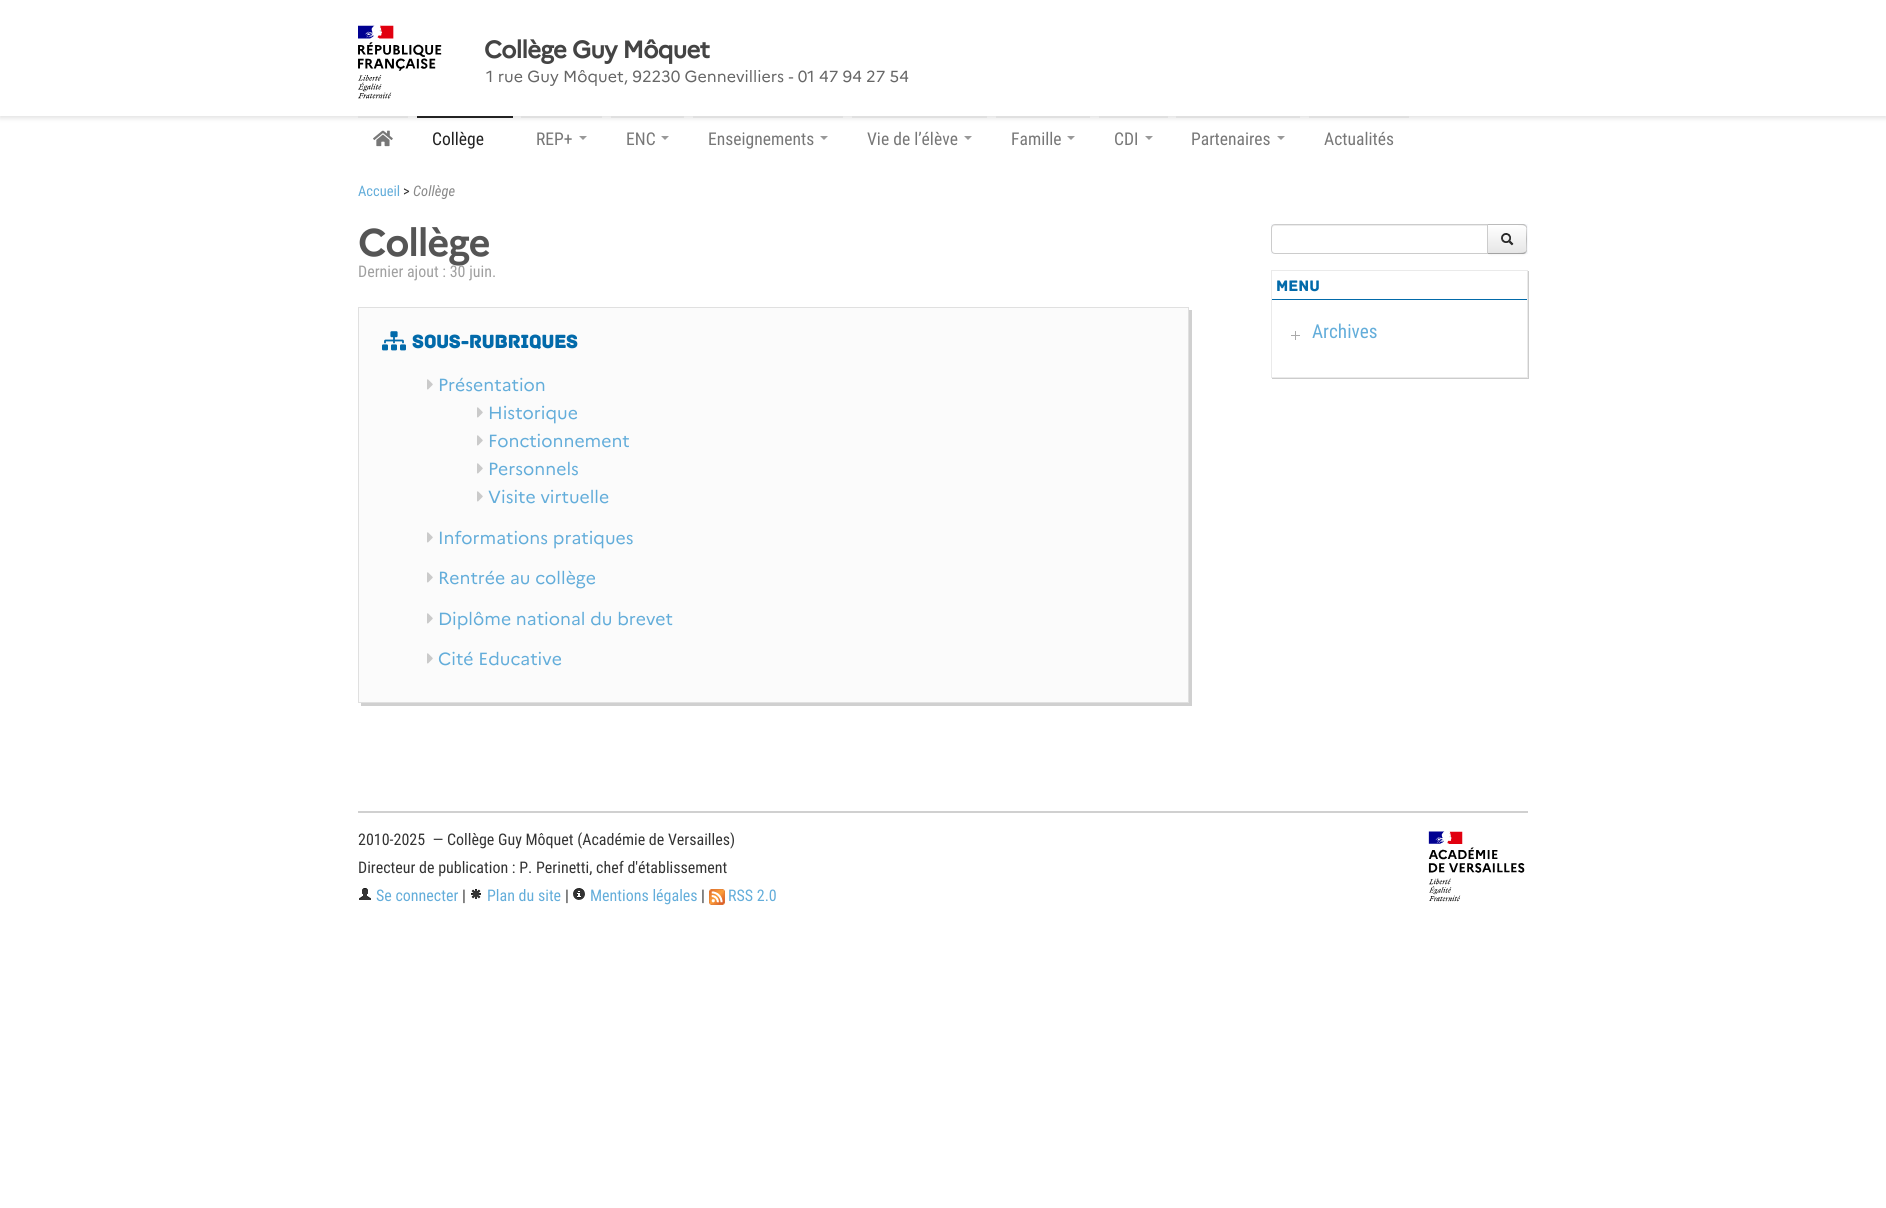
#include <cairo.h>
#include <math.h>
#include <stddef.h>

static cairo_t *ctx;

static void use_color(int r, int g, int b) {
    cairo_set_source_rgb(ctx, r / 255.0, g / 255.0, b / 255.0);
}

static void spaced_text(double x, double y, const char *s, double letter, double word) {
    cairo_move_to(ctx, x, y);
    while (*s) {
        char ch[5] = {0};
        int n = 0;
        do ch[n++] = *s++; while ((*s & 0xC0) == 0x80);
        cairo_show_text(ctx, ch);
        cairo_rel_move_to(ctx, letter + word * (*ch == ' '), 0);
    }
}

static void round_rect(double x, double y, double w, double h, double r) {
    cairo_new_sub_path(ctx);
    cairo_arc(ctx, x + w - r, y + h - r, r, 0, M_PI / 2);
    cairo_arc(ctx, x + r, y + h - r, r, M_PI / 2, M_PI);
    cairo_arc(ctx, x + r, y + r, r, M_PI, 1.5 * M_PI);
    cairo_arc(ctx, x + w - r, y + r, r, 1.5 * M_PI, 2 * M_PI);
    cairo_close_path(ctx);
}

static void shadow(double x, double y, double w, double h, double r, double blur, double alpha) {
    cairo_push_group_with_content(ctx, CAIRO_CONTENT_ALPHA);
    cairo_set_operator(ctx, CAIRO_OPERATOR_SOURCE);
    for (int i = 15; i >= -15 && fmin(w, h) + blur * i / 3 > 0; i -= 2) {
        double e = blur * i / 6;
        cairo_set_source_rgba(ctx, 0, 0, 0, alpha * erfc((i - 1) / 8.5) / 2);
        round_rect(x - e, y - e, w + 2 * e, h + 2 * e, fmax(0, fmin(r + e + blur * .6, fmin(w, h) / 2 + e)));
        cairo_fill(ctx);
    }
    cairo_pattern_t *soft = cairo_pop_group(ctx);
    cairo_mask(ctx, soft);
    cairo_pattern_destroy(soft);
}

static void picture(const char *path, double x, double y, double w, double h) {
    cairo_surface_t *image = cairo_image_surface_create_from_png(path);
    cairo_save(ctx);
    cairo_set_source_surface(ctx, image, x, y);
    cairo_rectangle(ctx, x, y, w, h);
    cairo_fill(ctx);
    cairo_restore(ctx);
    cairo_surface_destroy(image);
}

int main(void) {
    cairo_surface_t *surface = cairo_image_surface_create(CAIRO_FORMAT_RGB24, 1886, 1208);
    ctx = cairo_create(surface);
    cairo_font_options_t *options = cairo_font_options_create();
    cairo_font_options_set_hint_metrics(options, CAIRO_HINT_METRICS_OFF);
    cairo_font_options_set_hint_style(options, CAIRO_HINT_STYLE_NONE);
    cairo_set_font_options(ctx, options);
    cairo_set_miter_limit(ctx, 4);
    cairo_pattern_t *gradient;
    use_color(255, 255, 255);
    cairo_paint(ctx);
    cairo_save(ctx);
    cairo_rectangle(ctx, 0, 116, 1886, 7);
    cairo_clip(ctx);
    use_color(224, 224, 224);
    shadow(0, 2, 1886, 116, 0, 2.5, 1);
    cairo_restore(ctx);
    picture("img1.png", 358, 25, 84, 74);
    cairo_select_font_face(ctx, "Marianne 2", CAIRO_FONT_SLANT_NORMAL, CAIRO_FONT_WEIGHT_BOLD);
    cairo_set_font_size(ctx, 24);
    use_color(68, 68, 68);
    spaced_text(484, 58, "Collège Guy Môquet", -0.75, 0);
    cairo_select_font_face(ctx, "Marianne", CAIRO_FONT_SLANT_NORMAL, CAIRO_FONT_WEIGHT_NORMAL);
    cairo_set_font_size(ctx, 16);
    use_color(102, 102, 102);
    cairo_move_to(ctx, 486, 82);
    cairo_show_text(ctx, "1 rue Guy Môquet, 92230 Gennevilliers - 01 47 94 27 54");
    use_color(224, 224, 224);
    cairo_rectangle(ctx, 358, 116, 50, 2);
    cairo_fill(ctx);
    picture("img2.png", 373, 130, 20, 17);
    use_color(34, 34, 34);
    cairo_rectangle(ctx, 417, 116, 96, 2);
    cairo_fill(ctx);
    cairo_select_font_face(ctx, "Roboto Condensed", CAIRO_FONT_SLANT_NORMAL, CAIRO_FONT_WEIGHT_NORMAL);
    cairo_set_font_size(ctx, 17.6);
    cairo_move_to(ctx, 432, 145);
    cairo_show_text(ctx, "Collège");
    use_color(224, 224, 224);
    cairo_rectangle(ctx, 521, 116, 81, 2);
    cairo_fill(ctx);
    use_color(119, 119, 119);
    cairo_move_to(ctx, 536, 145);
    cairo_show_text(ctx, "REP+");
    use_color(153, 153, 153);
    cairo_new_path(ctx);
    cairo_move_to(ctx, 579, 136);
    cairo_line_to(ctx, 587, 136);
    cairo_line_to(ctx, 583, 140);
    cairo_close_path(ctx);
    cairo_fill(ctx);
    use_color(224, 224, 224);
    cairo_rectangle(ctx, 611, 116, 73, 2);
    cairo_fill(ctx);
    use_color(119, 119, 119);
    cairo_move_to(ctx, 626, 145);
    cairo_show_text(ctx, "ENC");
    use_color(153, 153, 153);
    cairo_new_path(ctx);
    cairo_move_to(ctx, 661, 136);
    cairo_line_to(ctx, 669, 136);
    cairo_line_to(ctx, 665, 140);
    cairo_close_path(ctx);
    cairo_fill(ctx);
    use_color(224, 224, 224);
    cairo_rectangle(ctx, 693, 116, 150, 2);
    cairo_fill(ctx);
    use_color(119, 119, 119);
    cairo_move_to(ctx, 708, 145);
    cairo_show_text(ctx, "Enseignements");
    use_color(153, 153, 153);
    cairo_new_path(ctx);
    cairo_move_to(ctx, 820, 136);
    cairo_line_to(ctx, 828, 136);
    cairo_line_to(ctx, 824, 140);
    cairo_close_path(ctx);
    cairo_fill(ctx);
    use_color(224, 224, 224);
    cairo_rectangle(ctx, 852, 116, 135, 2);
    cairo_fill(ctx);
    use_color(119, 119, 119);
    cairo_move_to(ctx, 867, 145);
    cairo_show_text(ctx, "Vie de l’élève");
    use_color(153, 153, 153);
    cairo_new_path(ctx);
    cairo_move_to(ctx, 964, 136);
    cairo_line_to(ctx, 972, 136);
    cairo_line_to(ctx, 968, 140);
    cairo_close_path(ctx);
    cairo_fill(ctx);
    use_color(224, 224, 224);
    cairo_rectangle(ctx, 996, 116, 94, 2);
    cairo_fill(ctx);
    use_color(119, 119, 119);
    cairo_move_to(ctx, 1011, 145);
    cairo_show_text(ctx, "Famille");
    use_color(153, 153, 153);
    cairo_new_path(ctx);
    cairo_move_to(ctx, 1067, 136);
    cairo_line_to(ctx, 1075, 136);
    cairo_line_to(ctx, 1071, 140);
    cairo_close_path(ctx);
    cairo_fill(ctx);
    use_color(224, 224, 224);
    cairo_rectangle(ctx, 1099, 116, 69, 2);
    cairo_fill(ctx);
    use_color(119, 119, 119);
    cairo_move_to(ctx, 1114, 145);
    cairo_show_text(ctx, "CDI");
    use_color(153, 153, 153);
    cairo_new_path(ctx);
    cairo_move_to(ctx, 1145, 136);
    cairo_line_to(ctx, 1153, 136);
    cairo_line_to(ctx, 1149, 140);
    cairo_close_path(ctx);
    cairo_fill(ctx);
    use_color(224, 224, 224);
    cairo_rectangle(ctx, 1176, 116, 124, 2);
    cairo_fill(ctx);
    use_color(119, 119, 119);
    cairo_move_to(ctx, 1191, 145);
    cairo_show_text(ctx, "Partenaires");
    use_color(153, 153, 153);
    cairo_new_path(ctx);
    cairo_move_to(ctx, 1277, 136);
    cairo_line_to(ctx, 1285, 136);
    cairo_line_to(ctx, 1281, 140);
    cairo_close_path(ctx);
    cairo_fill(ctx);
    use_color(224, 224, 224);
    cairo_rectangle(ctx, 1309, 116, 100, 2);
    cairo_fill(ctx);
    use_color(119, 119, 119);
    cairo_move_to(ctx, 1324, 145);
    cairo_show_text(ctx, "Actualités");
    cairo_set_font_size(ctx, 14.5);
    use_color(99, 173, 218);
    cairo_move_to(ctx, 358, 196);
    cairo_show_text(ctx, "Accueil");
    use_color(51, 51, 51);
    cairo_move_to(ctx, 403, 196);
    cairo_show_text(ctx, ">");
    cairo_select_font_face(ctx, "Roboto Condensed", CAIRO_FONT_SLANT_ITALIC, CAIRO_FONT_WEIGHT_NORMAL);
    use_color(136, 136, 136);
    cairo_move_to(ctx, 413, 196);
    cairo_show_text(ctx, "Collège");
    cairo_select_font_face(ctx, "Marianne", CAIRO_FONT_SLANT_NORMAL, CAIRO_FONT_WEIGHT_BOLD);
    cairo_set_font_size(ctx, 38.5);
    use_color(85, 85, 85);
    spaced_text(358, 256, "Collège", -1.25, 0);
    cairo_select_font_face(ctx, "Roboto Condensed", CAIRO_FONT_SLANT_NORMAL, CAIRO_FONT_WEIGHT_NORMAL);
    cairo_set_font_size(ctx, 16);
    use_color(160, 160, 160);
    cairo_move_to(ctx, 358, 277);
    cairo_show_text(ctx, "Dernier ajout : 30 juin.");
    use_color(208, 208, 208);
    cairo_new_path(ctx);
    cairo_move_to(ctx, 361, 703);
    cairo_line_to(ctx, 361, 706);
    cairo_line_to(ctx, 1192, 706);
    cairo_line_to(ctx, 1192, 310);
    cairo_line_to(ctx, 1189, 310);
    cairo_line_to(ctx, 1189, 703);
    cairo_close_path(ctx);
    cairo_fill(ctx);
    use_color(251, 251, 251);
    cairo_rectangle(ctx, 358.5, 307.5, 830, 395);
    cairo_fill_preserve(ctx);
    use_color(224, 224, 224);
    cairo_set_line_width(ctx, 1);
    cairo_stroke(ctx);
    picture("img3.png", 382, 331, 24, 20);
    cairo_select_font_face(ctx, "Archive", CAIRO_FONT_SLANT_NORMAL, CAIRO_FONT_WEIGHT_BOLD);
    cairo_set_font_size(ctx, 19.25);
    use_color(2, 106, 170);
    cairo_move_to(ctx, 412, 348);
    cairo_show_text(ctx, "Sous-rubriques");
    picture("img4.png", 427, 379, 6, 11);
    cairo_select_font_face(ctx, "Marianne", CAIRO_FONT_SLANT_NORMAL, CAIRO_FONT_WEIGHT_NORMAL);
    cairo_set_font_size(ctx, 17.6);
    use_color(99, 173, 218);
    cairo_move_to(ctx, 438, 391);
    cairo_show_text(ctx, "Présentation");
    picture("img4.png", 477, 407, 6, 11);
    cairo_move_to(ctx, 488, 419);
    cairo_show_text(ctx, "Historique");
    picture("img4.png", 477, 435, 6, 11);
    cairo_move_to(ctx, 488, 447);
    cairo_show_text(ctx, "Fonctionnement");
    picture("img4.png", 477, 463, 6, 11);
    cairo_move_to(ctx, 488, 475);
    cairo_show_text(ctx, "Personnels");
    picture("img4.png", 477, 491, 6, 11);
    cairo_move_to(ctx, 488, 503);
    cairo_show_text(ctx, "Visite virtuelle");
    picture("img4.png", 427, 532, 6, 11);
    cairo_move_to(ctx, 438, 544);
    cairo_show_text(ctx, "Informations pratiques");
    picture("img4.png", 427, 572, 6, 11);
    cairo_move_to(ctx, 438, 584);
    cairo_show_text(ctx, "Rentrée au collège");
    picture("img4.png", 427, 613, 6, 11);
    cairo_move_to(ctx, 438, 625);
    cairo_show_text(ctx, "Diplôme national du brevet");
    picture("img4.png", 427, 653, 6, 11);
    cairo_move_to(ctx, 438, 665);
    cairo_show_text(ctx, "Cité Educative");
    use_color(249, 250, 253);
    cairo_rectangle(ctx, 1271, 224, 257, 30);
    cairo_fill(ctx);
    use_color(0, 0, 0);
    shadow(1487, 225, 40, 30, 4, 1, 0.05);
    cairo_save(ctx);
    cairo_new_path(ctx);
    cairo_move_to(ctx, 1487, 224);
    cairo_line_to(ctx, 1523, 224);
    cairo_curve_to(ctx, 1525, 224, 1527, 226, 1527, 228);
    cairo_line_to(ctx, 1527, 250);
    cairo_curve_to(ctx, 1527, 252, 1525, 254, 1523, 254);
    cairo_line_to(ctx, 1487, 254);
    cairo_close_path(ctx);
    cairo_clip(ctx);
    gradient = cairo_pattern_create_linear(1507, 225, 1507, 253);
    cairo_pattern_add_color_stop_rgba(gradient, 0, 1, 1, 1, 1);
    cairo_pattern_add_color_stop_rgba(gradient, 1, 0.902, 0.902, 0.902, 1);
    cairo_set_source(ctx, gradient);
    cairo_pattern_destroy(gradient);
    cairo_rectangle(ctx, 1488, 225, 39, 28);
    cairo_fill(ctx);
    cairo_restore(ctx);
    use_color(187, 187, 187);
    cairo_new_path(ctx);
    cairo_move_to(ctx, 1487, 224);
    cairo_line_to(ctx, 1488, 225);
    cairo_line_to(ctx, 1517, 225);
    cairo_curve_to(ctx, 1521.5, 225, 1524, 225, 1525, 226);
    cairo_line_to(ctx, 1526, 225);
    cairo_curve_to(ctx, 1525, 224.5, 1524, 224, 1523, 224);
    cairo_close_path(ctx);
    cairo_fill(ctx);
    cairo_new_path(ctx);
    cairo_move_to(ctx, 1527, 250);
    cairo_line_to(ctx, 1527, 228);
    cairo_curve_to(ctx, 1527, 227, 1526.5, 226, 1526, 225);
    cairo_line_to(ctx, 1525, 226);
    cairo_curve_to(ctx, 1526, 226.5, 1526, 227.5, 1526.5, 228);
    cairo_line_to(ctx, 1526, 239);
    cairo_line_to(ctx, 1526.5, 250);
    cairo_curve_to(ctx, 1526, 250.5, 1526, 251.5, 1525, 252);
    cairo_line_to(ctx, 1526, 253);
    cairo_curve_to(ctx, 1526.5, 252, 1527, 251, 1527, 250);
    cairo_close_path(ctx);
    cairo_fill(ctx);
    use_color(162, 162, 162);
    cairo_new_path(ctx);
    cairo_move_to(ctx, 1523, 254);
    cairo_curve_to(ctx, 1524, 254, 1525, 253.5, 1526, 253);
    cairo_line_to(ctx, 1525, 252);
    cairo_curve_to(ctx, 1524, 253, 1521.5, 253, 1517, 253);
    cairo_line_to(ctx, 1488, 253);
    cairo_line_to(ctx, 1487, 254);
    cairo_close_path(ctx);
    cairo_fill(ctx);
    use_color(255, 255, 255);
    cairo_new_path(ctx);
    cairo_move_to(ctx, 1275, 224);
    cairo_line_to(ctx, 1488, 224);
    cairo_line_to(ctx, 1488, 254);
    cairo_line_to(ctx, 1275, 254);
    cairo_curve_to(ctx, 1273, 254, 1271, 252, 1271, 250);
    cairo_line_to(ctx, 1271, 228);
    cairo_curve_to(ctx, 1271, 226, 1273, 224, 1275, 224);
    cairo_close_path(ctx);
    cairo_fill(ctx);
    use_color(236, 236, 236);
    cairo_new_path(ctx);
    cairo_move_to(ctx, 1275, 226);
    cairo_line_to(ctx, 1487, 226);
    cairo_line_to(ctx, 1487, 225);
    cairo_line_to(ctx, 1275, 225);
    cairo_curve_to(ctx, 1273, 225, 1272, 226, 1272, 228);
    cairo_line_to(ctx, 1272, 229);
    cairo_curve_to(ctx, 1272, 227, 1273, 226, 1275, 226);
    cairo_close_path(ctx);
    cairo_fill(ctx);
    cairo_new_path(ctx);
    cairo_move_to(ctx, 1275, 224.5);
    cairo_line_to(ctx, 1487.5, 224.5);
    cairo_line_to(ctx, 1487.5, 253.5);
    cairo_line_to(ctx, 1275, 253.5);
    cairo_curve_to(ctx, 1273, 253.5, 1271.5, 252, 1271.5, 250);
    cairo_line_to(ctx, 1271.5, 228);
    cairo_curve_to(ctx, 1271.5, 226, 1273, 224.5, 1275, 224.5);
    cairo_close_path(ctx);
    use_color(204, 204, 204);
    cairo_stroke(ctx);
    picture("img5.png", 1501, 233, 13, 13);
    cairo_new_path(ctx);
    cairo_move_to(ctx, 1272, 378);
    cairo_line_to(ctx, 1272, 379);
    cairo_line_to(ctx, 1529, 379);
    cairo_line_to(ctx, 1529, 271);
    cairo_line_to(ctx, 1528, 271);
    cairo_line_to(ctx, 1528, 378);
    cairo_close_path(ctx);
    cairo_fill(ctx);
    cairo_rectangle(ctx, 1271.5, 270.5, 256, 107);
    use_color(234, 234, 234);
    cairo_stroke(ctx);
    use_color(2, 106, 170);
    cairo_rectangle(ctx, 1272, 299, 255, 1);
    cairo_fill(ctx);
    cairo_select_font_face(ctx, "Archive", CAIRO_FONT_SLANT_NORMAL, CAIRO_FONT_WEIGHT_NORMAL);
    cairo_set_font_size(ctx, 16);
    cairo_move_to(ctx, 1276, 291);
    cairo_show_text(ctx, "Menu");
    picture("img6.png", 1291, 331, 9, 9);
    cairo_select_font_face(ctx, "Roboto Condensed", CAIRO_FONT_SLANT_NORMAL, CAIRO_FONT_WEIGHT_NORMAL);
    cairo_set_font_size(ctx, 19.25);
    use_color(99, 173, 218);
    cairo_move_to(ctx, 1312, 338);
    cairo_show_text(ctx, "Archives");
    use_color(208, 208, 208);
    cairo_rectangle(ctx, 358, 811, 1170, 2);
    cairo_fill(ctx);
    cairo_set_font_size(ctx, 16);
    use_color(51, 51, 51);
    cairo_move_to(ctx, 358, 845);
    cairo_show_text(ctx, "2010-2025  — Collège Guy Môquet (Académie de Versailles)");
    cairo_move_to(ctx, 358, 873);
    cairo_show_text(ctx, "Directeur de publication : P. Perinetti, chef d'établissement");
    picture("img7.png", 359, 888, 12, 12);
    use_color(99, 173, 218);
    cairo_move_to(ctx, 376, 901);
    cairo_show_text(ctx, "Se connecter");
    use_color(51, 51, 51);
    cairo_move_to(ctx, 462, 901);
    cairo_show_text(ctx, "|");
    picture("img8.png", 471, 889, 10, 10);
    use_color(99, 173, 218);
    cairo_move_to(ctx, 487, 901);
    cairo_show_text(ctx, "Plan du site");
    use_color(51, 51, 51);
    cairo_move_to(ctx, 565, 901);
    cairo_show_text(ctx, "|");
    picture("img9.png", 573, 888, 12, 12);
    use_color(99, 173, 218);
    cairo_move_to(ctx, 590, 901);
    cairo_show_text(ctx, "Mentions légales");
    use_color(51, 51, 51);
    cairo_move_to(ctx, 701, 901);
    cairo_show_text(ctx, "|");
    picture("img10.png", 709, 889, 16, 16);
    use_color(99, 173, 218);
    cairo_move_to(ctx, 728, 901);
    cairo_show_text(ctx, "RSS 2.0");
    picture("img11.png", 1428, 831, 97, 71);
    cairo_surface_write_to_png(surface, "result.png");
    cairo_font_options_destroy(options);
    cairo_destroy(ctx);
    cairo_surface_destroy(surface);
    return 0;
}
